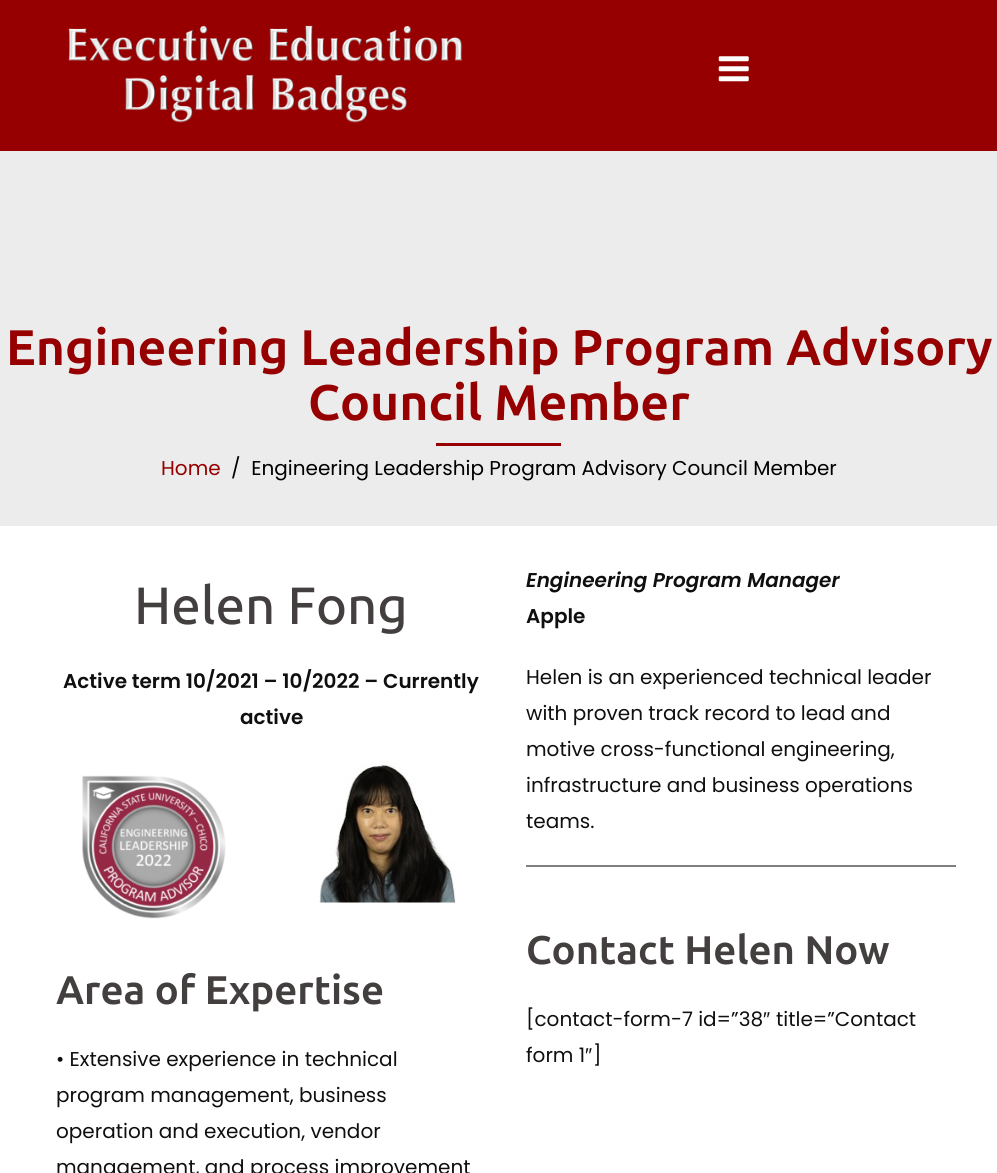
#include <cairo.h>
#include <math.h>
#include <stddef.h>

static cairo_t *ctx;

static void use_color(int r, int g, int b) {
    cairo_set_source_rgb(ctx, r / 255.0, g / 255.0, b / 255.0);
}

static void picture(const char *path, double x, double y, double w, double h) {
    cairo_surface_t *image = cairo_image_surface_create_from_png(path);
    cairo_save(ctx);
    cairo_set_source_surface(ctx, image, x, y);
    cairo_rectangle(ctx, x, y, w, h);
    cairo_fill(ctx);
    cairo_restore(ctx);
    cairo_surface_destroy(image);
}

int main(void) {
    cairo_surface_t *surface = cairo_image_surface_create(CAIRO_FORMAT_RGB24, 997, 1173);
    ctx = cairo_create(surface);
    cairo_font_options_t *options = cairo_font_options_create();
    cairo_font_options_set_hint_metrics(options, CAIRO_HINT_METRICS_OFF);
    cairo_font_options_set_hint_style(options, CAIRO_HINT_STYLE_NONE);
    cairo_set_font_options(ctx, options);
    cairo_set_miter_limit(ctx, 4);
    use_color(255, 255, 255);
    cairo_paint(ctx);
    use_color(150, 0, 0);
    cairo_rectangle(ctx, 0, 0, 997, 151);
    cairo_fill(ctx);
    picture("img1.png", 68, 25, 395, 98);
    picture("img2.png", 718, 56, 31, 26);
    use_color(236, 236, 236);
    cairo_rectangle(ctx, 0, 151, 997, 375);
    cairo_fill(ctx);
    cairo_select_font_face(ctx, "Ubuntu", CAIRO_FONT_SLANT_NORMAL, CAIRO_FONT_WEIGHT_BOLD);
    cairo_set_font_size(ctx, 50);
    use_color(150, 0, 0);
    cairo_move_to(ctx, 6, 365);
    cairo_show_text(ctx, "Engineering Leadership Program Advisory");
    cairo_move_to(ctx, 308, 420);
    cairo_show_text(ctx, "Council Member");
    cairo_rectangle(ctx, 436, 443, 125, 3);
    cairo_fill(ctx);
    cairo_select_font_face(ctx, "Poppins", CAIRO_FONT_SLANT_NORMAL, CAIRO_FONT_WEIGHT_NORMAL);
    cairo_set_font_size(ctx, 20);
    cairo_move_to(ctx, 161, 475);
    cairo_show_text(ctx, "Home");
    use_color(0, 0, 0);
    cairo_move_to(ctx, 231, 475);
    cairo_show_text(ctx, "/  Engineering Leadership Program Advisory Council Member");
    cairo_select_font_face(ctx, "Ubuntu Medium", CAIRO_FONT_SLANT_NORMAL, CAIRO_FONT_WEIGHT_NORMAL);
    cairo_set_font_size(ctx, 52.5);
    use_color(68, 63, 63);
    cairo_move_to(ctx, 134, 624);
    cairo_show_text(ctx, "Helen Fong");
    cairo_select_font_face(ctx, "Poppins SemiBold", CAIRO_FONT_SLANT_NORMAL, CAIRO_FONT_WEIGHT_NORMAL);
    cairo_set_font_size(ctx, 20);
    use_color(15, 15, 15);
    cairo_move_to(ctx, 63, 688);
    cairo_show_text(ctx, "Active term 10/2021 – 10/2022 – Currently");
    cairo_move_to(ctx, 240, 724);
    cairo_show_text(ctx, "active");
    picture("img3.png", 82, 775, 144, 144);
    picture("img4.png", 319, 763, 137, 140);
    cairo_select_font_face(ctx, "Ubuntu", CAIRO_FONT_SLANT_NORMAL, CAIRO_FONT_WEIGHT_BOLD);
    cairo_set_font_size(ctx, 40);
    use_color(68, 63, 63);
    cairo_move_to(ctx, 56, 1004);
    cairo_show_text(ctx, "Area of Expertise");
    cairo_select_font_face(ctx, "Poppins", CAIRO_FONT_SLANT_NORMAL, CAIRO_FONT_WEIGHT_NORMAL);
    cairo_set_font_size(ctx, 20);
    use_color(15, 15, 15);
    cairo_move_to(ctx, 56, 1066);
    cairo_show_text(ctx, "• Extensive experience in technical");
    cairo_move_to(ctx, 56, 1102);
    cairo_show_text(ctx, "program management, business");
    cairo_move_to(ctx, 56, 1138);
    cairo_show_text(ctx, "operation and execution, vendor");
    cairo_move_to(ctx, 56, 1174);
    cairo_show_text(ctx, "management, and process improvement");
    cairo_select_font_face(ctx, "Poppins SemiBold", CAIRO_FONT_SLANT_ITALIC, CAIRO_FONT_WEIGHT_NORMAL);
    cairo_move_to(ctx, 526, 587);
    cairo_show_text(ctx, "Engineering Program Manager");
    cairo_select_font_face(ctx, "Poppins SemiBold", CAIRO_FONT_SLANT_NORMAL, CAIRO_FONT_WEIGHT_NORMAL);
    cairo_move_to(ctx, 526, 623);
    cairo_show_text(ctx, "Apple");
    cairo_select_font_face(ctx, "Poppins", CAIRO_FONT_SLANT_NORMAL, CAIRO_FONT_WEIGHT_NORMAL);
    cairo_move_to(ctx, 526, 684);
    cairo_show_text(ctx, "Helen is an experienced technical leader");
    cairo_move_to(ctx, 526, 720);
    cairo_show_text(ctx, "with proven track record to lead and");
    cairo_move_to(ctx, 526, 756);
    cairo_show_text(ctx, "motive cross-functional engineering,");
    cairo_move_to(ctx, 526, 792);
    cairo_show_text(ctx, "infrastructure and business operations");
    cairo_move_to(ctx, 526, 828);
    cairo_show_text(ctx, "teams.");
    use_color(128, 128, 128);
    cairo_rectangle(ctx, 526, 865, 430, 2);
    cairo_fill(ctx);
    cairo_select_font_face(ctx, "Ubuntu", CAIRO_FONT_SLANT_NORMAL, CAIRO_FONT_WEIGHT_BOLD);
    cairo_set_font_size(ctx, 40);
    use_color(68, 63, 63);
    cairo_move_to(ctx, 526, 964);
    cairo_show_text(ctx, "Contact Helen Now");
    cairo_select_font_face(ctx, "Poppins", CAIRO_FONT_SLANT_NORMAL, CAIRO_FONT_WEIGHT_NORMAL);
    cairo_set_font_size(ctx, 20);
    use_color(15, 15, 15);
    cairo_move_to(ctx, 526, 1026);
    cairo_show_text(ctx, "[contact-form-7 id=”38");
    cairo_select_font_face(ctx, "Liberation Sans", CAIRO_FONT_SLANT_NORMAL, CAIRO_FONT_WEIGHT_NORMAL);
    cairo_move_to(ctx, 763, 1026);
    cairo_show_text(ctx, "″");
    cairo_select_font_face(ctx, "Poppins", CAIRO_FONT_SLANT_NORMAL, CAIRO_FONT_WEIGHT_NORMAL);
    cairo_move_to(ctx, 776, 1026);
    cairo_show_text(ctx, "title=”Contact");
    cairo_move_to(ctx, 526, 1062);
    cairo_show_text(ctx, "form 1");
    cairo_select_font_face(ctx, "Liberation Sans", CAIRO_FONT_SLANT_NORMAL, CAIRO_FONT_WEIGHT_NORMAL);
    cairo_move_to(ctx, 585, 1062);
    cairo_show_text(ctx, "″");
    cairo_select_font_face(ctx, "Poppins", CAIRO_FONT_SLANT_NORMAL, CAIRO_FONT_WEIGHT_NORMAL);
    cairo_move_to(ctx, 593, 1062);
    cairo_show_text(ctx, "]");
    cairo_surface_write_to_png(surface, "result.png");
    cairo_font_options_destroy(options);
    cairo_destroy(ctx);
    cairo_surface_destroy(surface);
    return 0;
}
